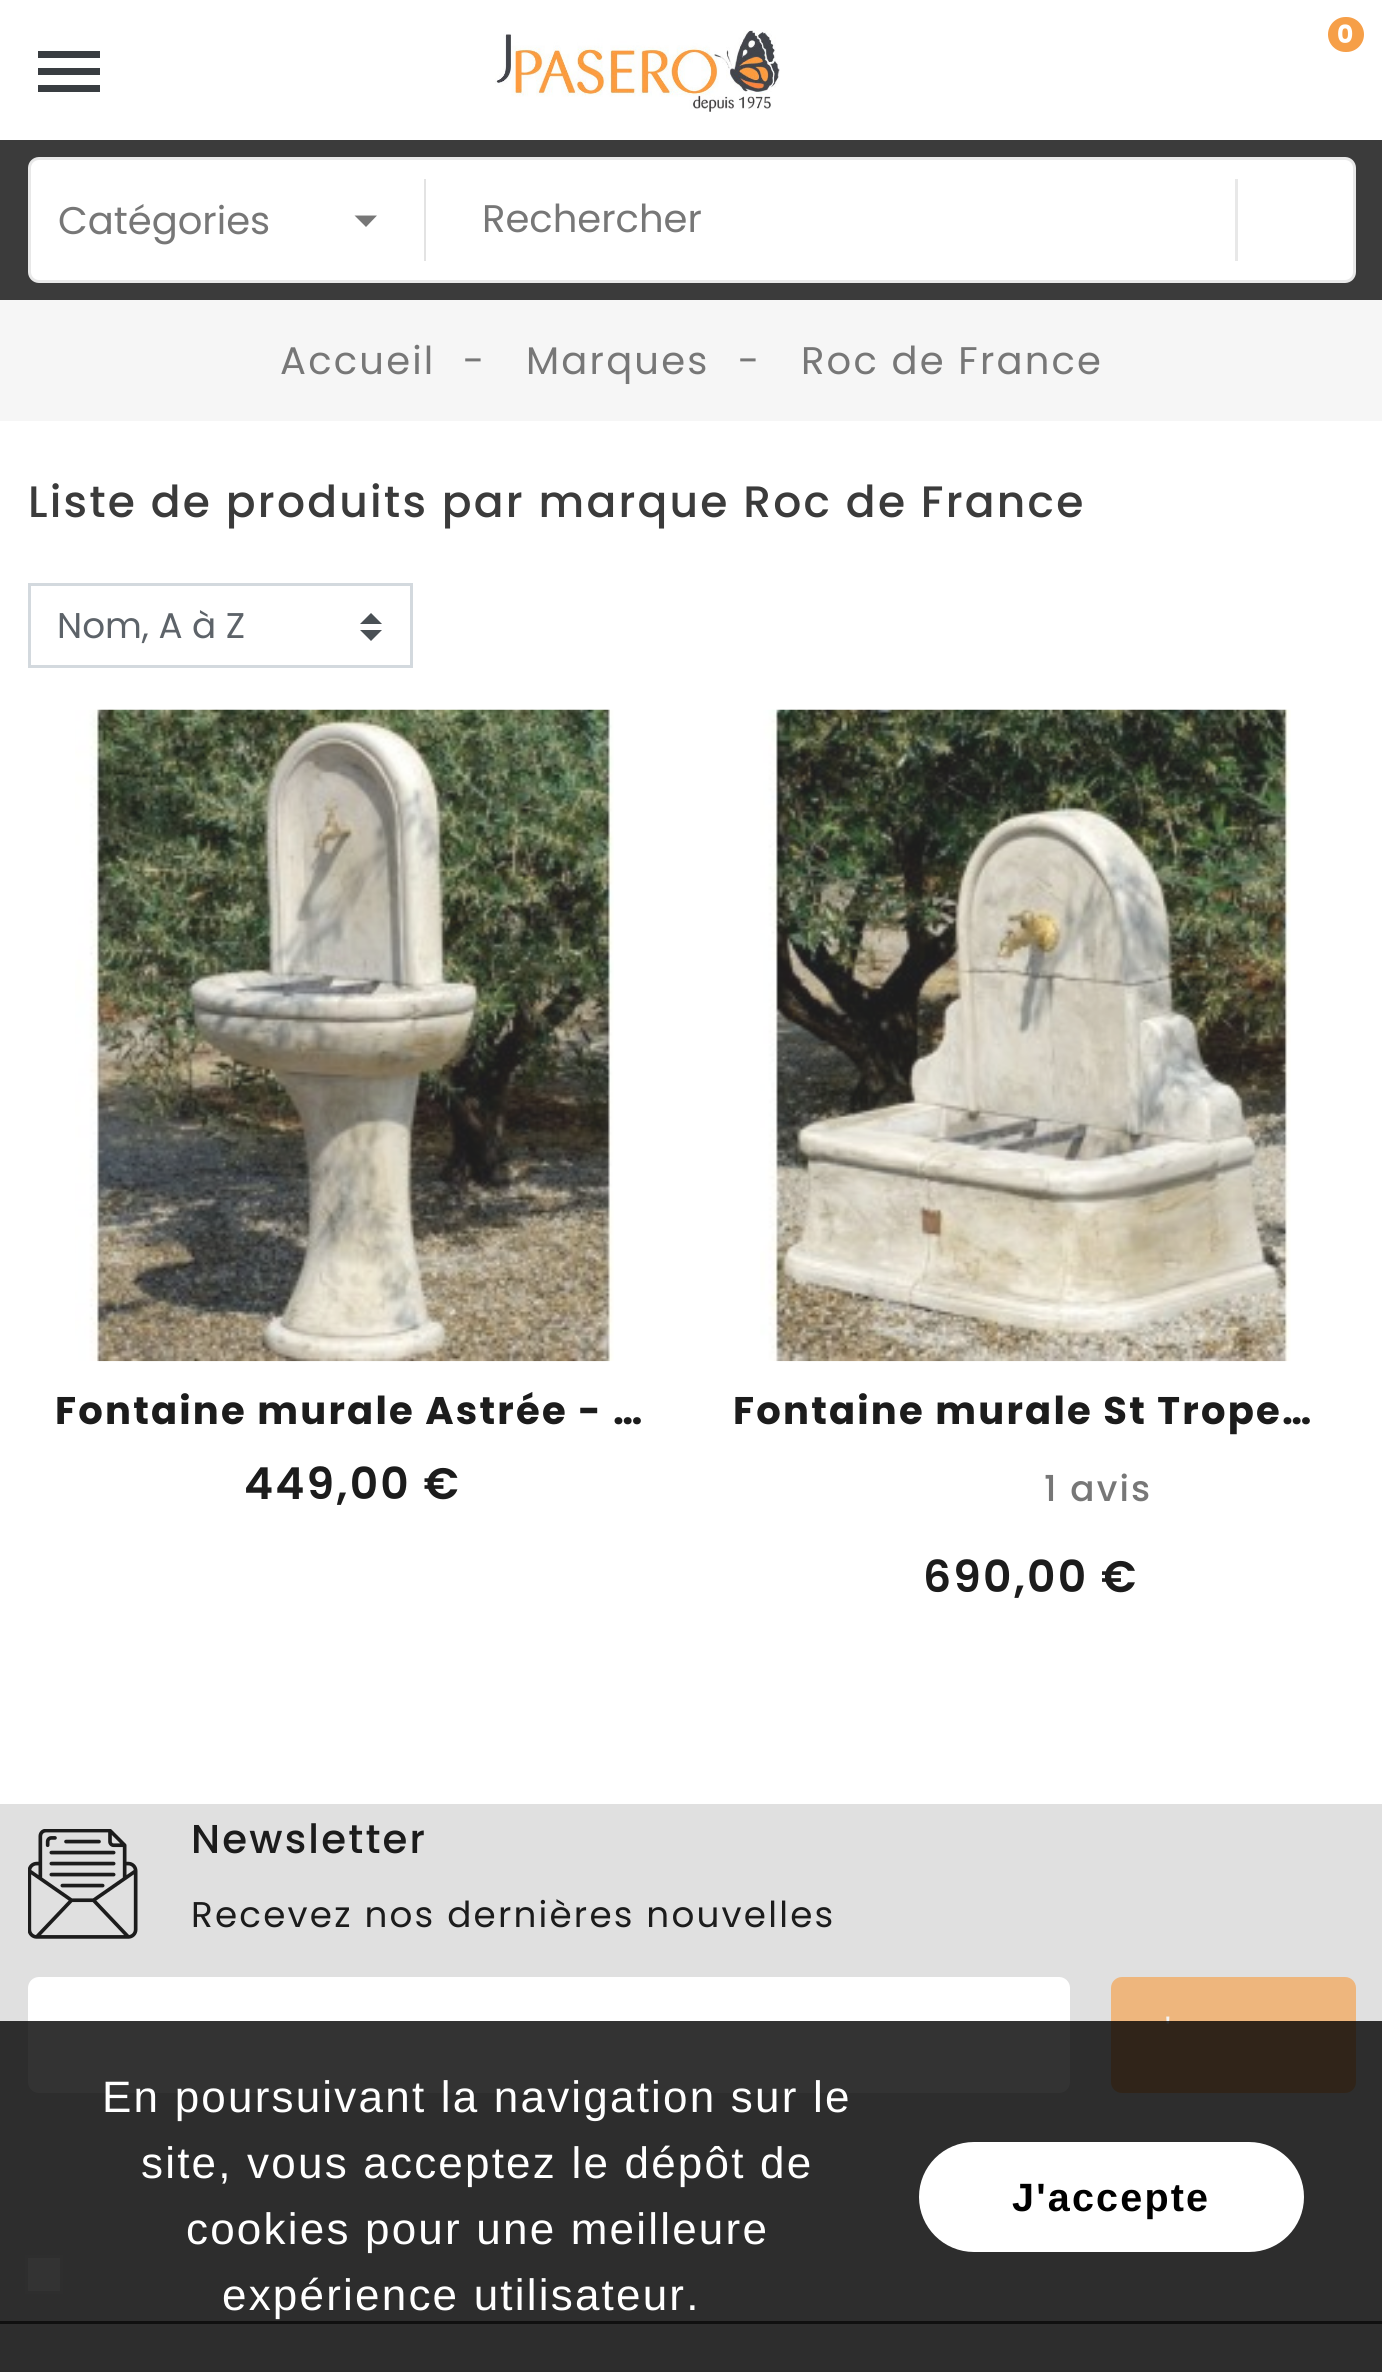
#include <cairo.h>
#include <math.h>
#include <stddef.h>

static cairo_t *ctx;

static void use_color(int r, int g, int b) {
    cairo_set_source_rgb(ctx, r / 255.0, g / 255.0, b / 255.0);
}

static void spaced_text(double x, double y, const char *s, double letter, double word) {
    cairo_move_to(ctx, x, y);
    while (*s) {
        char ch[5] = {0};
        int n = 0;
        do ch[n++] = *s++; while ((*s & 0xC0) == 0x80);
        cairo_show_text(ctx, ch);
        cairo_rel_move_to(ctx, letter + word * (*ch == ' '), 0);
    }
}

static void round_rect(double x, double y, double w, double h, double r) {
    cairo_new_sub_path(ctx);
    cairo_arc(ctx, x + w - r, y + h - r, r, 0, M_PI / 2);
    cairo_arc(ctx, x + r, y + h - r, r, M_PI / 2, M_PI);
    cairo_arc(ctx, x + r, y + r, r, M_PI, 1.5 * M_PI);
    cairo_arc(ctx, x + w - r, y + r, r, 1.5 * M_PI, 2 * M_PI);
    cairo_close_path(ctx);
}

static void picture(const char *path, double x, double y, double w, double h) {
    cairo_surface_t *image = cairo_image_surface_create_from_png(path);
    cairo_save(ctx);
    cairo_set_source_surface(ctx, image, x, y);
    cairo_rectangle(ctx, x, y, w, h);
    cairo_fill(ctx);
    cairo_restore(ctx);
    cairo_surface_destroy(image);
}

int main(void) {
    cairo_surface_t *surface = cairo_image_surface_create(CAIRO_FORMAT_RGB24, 1382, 2372);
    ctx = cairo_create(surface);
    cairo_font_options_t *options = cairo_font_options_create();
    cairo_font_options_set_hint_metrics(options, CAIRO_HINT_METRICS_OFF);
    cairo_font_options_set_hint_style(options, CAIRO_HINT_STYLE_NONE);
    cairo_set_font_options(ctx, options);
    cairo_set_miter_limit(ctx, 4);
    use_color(255, 255, 255);
    cairo_paint(ctx);
    use_color(57, 61, 65);
    cairo_new_path(ctx);
    cairo_move_to(ctx, 38, 92);
    cairo_line_to(ctx, 100, 92);
    cairo_line_to(ctx, 100, 85);
    cairo_line_to(ctx, 38, 85);
    cairo_close_path(ctx);
    cairo_move_to(ctx, 38, 75);
    cairo_line_to(ctx, 100, 75);
    cairo_line_to(ctx, 100, 68);
    cairo_line_to(ctx, 38, 68);
    cairo_close_path(ctx);
    cairo_move_to(ctx, 38, 51);
    cairo_line_to(ctx, 38, 58);
    cairo_line_to(ctx, 100, 58);
    cairo_line_to(ctx, 100, 51);
    cairo_close_path(ctx);
    cairo_fill(ctx);
    picture("img1.png", 495, 30, 285, 82);
    use_color(246, 159, 72);
    round_rect(1328, 17, 36, 35, 17.5);
    cairo_fill(ctx);
    cairo_select_font_face(ctx, "Poppins", CAIRO_FONT_SLANT_NORMAL, CAIRO_FONT_WEIGHT_BOLD);
    cairo_set_font_size(ctx, 25);
    use_color(255, 255, 255);
    spaced_text(1337, 43, "0", 2.2, 0);
    use_color(59, 59, 59);
    cairo_rectangle(ctx, 0, 140, 1382, 160);
    cairo_fill(ctx);
    use_color(255, 255, 255);
    round_rect(29.5, 158.5, 1325, 123, 9.5);
    cairo_fill_preserve(ctx);
    use_color(232, 232, 232);
    cairo_set_line_width(ctx, 3);
    cairo_stroke(ctx);
    cairo_select_font_face(ctx, "Poppins", CAIRO_FONT_SLANT_NORMAL, CAIRO_FONT_WEIGHT_NORMAL);
    cairo_set_font_size(ctx, 38.5);
    use_color(119, 119, 119);
    cairo_move_to(ctx, 58, 234);
    cairo_show_text(ctx, "Catégories");
    cairo_new_path(ctx);
    cairo_move_to(ctx, 354.5, 215.5);
    cairo_line_to(ctx, 377, 215.5);
    cairo_line_to(ctx, 366, 227);
    cairo_close_path(ctx);
    cairo_fill(ctx);
    use_color(227, 227, 227);
    cairo_rectangle(ctx, 424, 179, 2, 82);
    cairo_fill(ctx);
    use_color(119, 119, 119);
    cairo_move_to(ctx, 482, 232);
    cairo_show_text(ctx, "Rechercher");
    use_color(232, 232, 232);
    cairo_rectangle(ctx, 1235, 179, 3, 82);
    cairo_fill(ctx);
    use_color(246, 246, 246);
    cairo_rectangle(ctx, 0, 300, 1382, 121);
    cairo_fill(ctx);
    use_color(119, 119, 119);
    spaced_text(280, 374, "Accueil", 2.2, 0);
    spaced_text(463, 374, "-", 2.2, 0);
    spaced_text(526, 374, "Marques", 2.2, 0);
    spaced_text(738, 374, "-", 2.2, 0);
    spaced_text(801, 374, "Roc de France", 2.2, 0);
    cairo_select_font_face(ctx, "Poppins Medium", CAIRO_FONT_SLANT_NORMAL, CAIRO_FONT_WEIGHT_NORMAL);
    cairo_set_font_size(ctx, 44);
    use_color(59, 59, 59);
    spaced_text(28, 517, "Liste de produits par marque Roc de France", 2.2, 0);
    use_color(74, 80, 85);
    cairo_new_path(ctx);
    cairo_move_to(ctx, 371, 613);
    cairo_line_to(ctx, 360, 624);
    cairo_line_to(ctx, 382, 624);
    cairo_close_path(ctx);
    cairo_move_to(ctx, 371, 641);
    cairo_line_to(ctx, 360, 630);
    cairo_line_to(ctx, 382, 630);
    cairo_close_path(ctx);
    cairo_fill(ctx);
    cairo_rectangle(ctx, 29.5, 584.5, 382, 82);
    use_color(211, 217, 222);
    cairo_stroke(ctx);
    cairo_select_font_face(ctx, "Poppins", CAIRO_FONT_SLANT_NORMAL, CAIRO_FONT_WEIGHT_NORMAL);
    cairo_set_font_size(ctx, 35.75);
    use_color(93, 99, 105);
    cairo_move_to(ctx, 57, 638);
    cairo_show_text(ctx, "Nom, A à Z");
    picture("img2.png", 75, 709, 539, 653);
    cairo_select_font_face(ctx, "Poppins", CAIRO_FONT_SLANT_NORMAL, CAIRO_FONT_WEIGHT_BOLD);
    cairo_set_font_size(ctx, 38.5);
    use_color(28, 28, 28);
    spaced_text(55, 1424, "Fontaine murale Astrée - …", 2.2, 0);
    cairo_select_font_face(ctx, "Poppins SemiBold", CAIRO_FONT_SLANT_NORMAL, CAIRO_FONT_WEIGHT_NORMAL);
    cairo_set_font_size(ctx, 44);
    spaced_text(244, 1499, "449,00 €", 2.2, 0);
    picture("img3.png", 760, 709, 531, 653);
    cairo_select_font_face(ctx, "Poppins", CAIRO_FONT_SLANT_NORMAL, CAIRO_FONT_WEIGHT_BOLD);
    cairo_set_font_size(ctx, 38.5);
    spaced_text(733, 1424, "Fontaine murale St Trope…", 2.2, 0);
    cairo_select_font_face(ctx, "Poppins Medium", CAIRO_FONT_SLANT_NORMAL, CAIRO_FONT_WEIGHT_NORMAL);
    cairo_set_font_size(ctx, 35.75);
    use_color(119, 119, 119);
    spaced_text(1044, 1501, "1 avis", 2.2, 0);
    cairo_select_font_face(ctx, "Poppins SemiBold", CAIRO_FONT_SLANT_NORMAL, CAIRO_FONT_WEIGHT_NORMAL);
    cairo_set_font_size(ctx, 44);
    use_color(28, 28, 28);
    spaced_text(923, 1592, "690,00 €", 2.2, 0);
    use_color(224, 224, 224);
    cairo_rectangle(ctx, 0, 1804, 1382, 568);
    cairo_fill(ctx);
    picture("img4.png", 28, 1829, 110, 110);
    cairo_select_font_face(ctx, "Poppins Medium", CAIRO_FONT_SLANT_NORMAL, CAIRO_FONT_WEIGHT_NORMAL);
    cairo_set_font_size(ctx, 40.25);
    use_color(28, 28, 28);
    spaced_text(191, 1853, "Newsletter", 2.2, 0);
    cairo_select_font_face(ctx, "Poppins", CAIRO_FONT_SLANT_NORMAL, CAIRO_FONT_WEIGHT_NORMAL);
    cairo_set_font_size(ctx, 35.75);
    spaced_text(191, 1927, "Recevez nos dernières nouvelles", 2.2, 0);
    use_color(255, 255, 255);
    round_rect(28, 1977, 1042, 116, 11);
    cairo_fill(ctx);
    use_color(238, 182, 125);
    round_rect(1111, 1977, 245, 116, 11);
    cairo_fill(ctx);
    use_color(244, 244, 244);
    cairo_move_to(ctx, 1165, 2045);
    cairo_show_text(ctx, "'");
    use_color(255, 255, 255);
    cairo_rectangle(ctx, 26.5, 2256.5, 35, 36);
    cairo_fill_preserve(ctx);
    use_color(232, 232, 232);
    cairo_stroke(ctx);
    use_color(79, 79, 79);
    cairo_rectangle(ctx, 0, 2321, 1382, 3);
    cairo_fill(ctx);
    cairo_set_source_rgba(ctx, 0, 0, 0, 0.8);
    cairo_rectangle(ctx, 0, 2021, 1382, 351);
    cairo_fill(ctx);
    cairo_select_font_face(ctx, "Liberation Sans", CAIRO_FONT_SLANT_NORMAL, CAIRO_FONT_WEIGHT_NORMAL);
    cairo_set_font_size(ctx, 44);
    use_color(255, 255, 255);
    spaced_text(102, 2112, "En poursuivant la navigation sur le", 2.2, 0);
    spaced_text(141, 2178, "site, vous acceptez le dépôt de", 2.2, 0);
    spaced_text(186, 2244, "cookies pour une meilleure", 2.2, 0);
    spaced_text(222, 2310, "expérience utilisateur.", 2.2, 0);
    round_rect(919, 2142, 385, 110, 55);
    cairo_fill(ctx);
    cairo_select_font_face(ctx, "Liberation Sans", CAIRO_FONT_SLANT_NORMAL, CAIRO_FONT_WEIGHT_BOLD);
    cairo_set_font_size(ctx, 39.5);
    use_color(0, 0, 0);
    spaced_text(1012, 2211, "J'accepte", 2.2, 0);
    cairo_surface_write_to_png(surface, "result.png");
    cairo_font_options_destroy(options);
    cairo_destroy(ctx);
    cairo_surface_destroy(surface);
    return 0;
}
